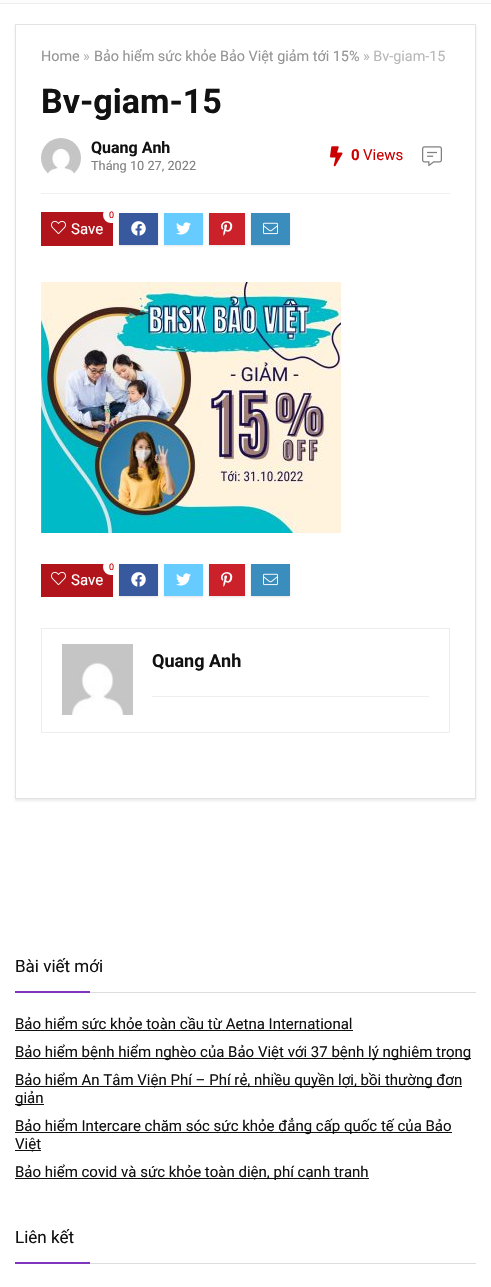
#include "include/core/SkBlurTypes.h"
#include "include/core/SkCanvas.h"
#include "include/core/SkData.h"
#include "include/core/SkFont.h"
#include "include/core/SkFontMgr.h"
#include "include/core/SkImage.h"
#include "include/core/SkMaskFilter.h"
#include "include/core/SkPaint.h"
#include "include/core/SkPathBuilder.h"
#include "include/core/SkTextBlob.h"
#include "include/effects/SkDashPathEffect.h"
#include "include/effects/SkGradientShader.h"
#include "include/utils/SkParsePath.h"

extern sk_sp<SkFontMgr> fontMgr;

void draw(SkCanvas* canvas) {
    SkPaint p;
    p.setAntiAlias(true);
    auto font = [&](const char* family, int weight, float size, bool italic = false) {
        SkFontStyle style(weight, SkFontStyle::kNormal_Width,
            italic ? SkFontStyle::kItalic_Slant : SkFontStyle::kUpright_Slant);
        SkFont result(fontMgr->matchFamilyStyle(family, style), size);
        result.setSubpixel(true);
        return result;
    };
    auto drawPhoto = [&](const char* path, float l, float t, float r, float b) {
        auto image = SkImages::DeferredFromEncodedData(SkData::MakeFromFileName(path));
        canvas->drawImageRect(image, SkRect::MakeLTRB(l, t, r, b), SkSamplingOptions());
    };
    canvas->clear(0xFFFFFFFF);
    p.setColor(0xFFFCFCFC);
    canvas->drawRect(SkRect::MakeLTRB(0, 0, 491, 3), p);
    p.setColor(0xFFEEEEEE);
    canvas->drawRect(SkRect::MakeLTRB(0, 3, 491, 4), p);
    canvas->save();
    canvas->clipPath(SkPathBuilder(SkPathFillType::kEvenOdd).moveTo(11, 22).lineTo(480, 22).lineTo(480, 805).lineTo(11, 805).close().moveTo(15, 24).lineTo(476, 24).lineTo(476, 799).lineTo(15, 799).close().detach(), true);
    p.setColor(0xFFECECEC);
    p.setMaskFilter(SkMaskFilter::MakeBlur(kNormal_SkBlurStyle, 1));
    canvas->drawRect(SkRect::MakeLTRB(15, 26, 476, 801), p);
    p.setMaskFilter(nullptr);
    canvas->restore();
    p.setStyle(SkPaint::kStroke_Style);
    p.setStrokeWidth(1);
    p.setColor(0xFFE3E3E3);
    canvas->drawRect(SkRect::MakeLTRB(15.5f, 24.5f, 475.5f, 798.5f), p);
    auto font1 = font("Roboto", 400, 14.4f);
    p.setStyle(SkPaint::kFill_Style);
    p.setColor(0xFF949494);
    canvas->drawString("Home", 41, 61, font1, p);
    p.setColor(0xFFB8B8B8);
    canvas->drawString("»", 83, 61, font1, p);
    p.setColor(0xFF949494);
    canvas->drawString("Bảo hiểm sức khỏe Bảo Việt giảm tới 15%", 94, 61, font1, p);
    p.setColor(0xFFB8B8B8);
    canvas->drawString("» Bv-giam-15", 363, 61, font1, p);
    auto font2 = font("Roboto", 700, 34);
    p.setColor(0xFF111111);
    canvas->drawString("Bv-giam-15", 41, 113, font2, p);
    p.setColor(0xFFF0F0F0);
    canvas->drawRect(SkRect::MakeLTRB(41, 193, 450, 194), p);
    drawPhoto("media/1.png", 41, 138, 81, 174);
    auto font3 = font("Roboto", 700, 16);
    p.setColor(0xFF111111);
    canvas->drawString("Quang Anh", 91, 153, font3, p);
    auto font4 = font("Roboto", 400, 12.75f);
    p.setColor(0xFF808080);
    canvas->drawString("Tháng 10 27, 2022", 91, 170, font4, p);
    drawPhoto("media/2.png", 330, 146, 343, 167);
    auto font5 = font("Roboto", 700, 15);
    p.setColor(0xFFCC0000);
    canvas->drawString("0", 351, 160, font5, p);
    auto font6 = font("Roboto", 400, 15);
    canvas->drawString("Views", 363, 160, font6, p);
    drawPhoto("media/3.png", 422, 146, 442, 167);
    p.setColor(0xFFB1141A);
    canvas->drawRect(SkRect::MakeLTRB(41, 212, 113, 246), p);
    canvas->save();
    canvas->clipRect(SkRect::MakeLTRB(41, 209, 450, 252));
    p.setColor(0xFFFFFFFF);
    canvas->drawRoundRect(SkRect::MakeLTRB(103, 207, 120, 223), 8, 8, p);
    canvas->restore();
    auto font7 = font("Roboto", 400, 9);
    p.setColor(0xFFCC0000);
    canvas->drawString("0", 109, 218, font7, p);
    drawPhoto("media/4.png", 51, 220, 66, 234);
    p.setColor(0xFFFFFFFF);
    canvas->drawString("Save", 71, 234, font6, p);
    p.setColor(0xFFE4E4E4);
    p.setMaskFilter(SkMaskFilter::MakeBlur(kNormal_SkBlurStyle, 1));
    canvas->drawRect(SkRect::MakeLTRB(119, 214, 158, 246), p);
    p.setMaskFilter(nullptr);
    p.setColor(0xFF39599F);
    canvas->drawRect(SkRect::MakeLTRB(119, 213, 158, 245), p);
    drawPhoto("media/5.png", 131, 221, 146, 236);
    p.setColor(0xFFE4E4E4);
    p.setMaskFilter(SkMaskFilter::MakeBlur(kNormal_SkBlurStyle, 1));
    canvas->drawRect(SkRect::MakeLTRB(164, 214, 203, 246), p);
    p.setMaskFilter(nullptr);
    p.setColor(0xFF66CCFF);
    canvas->drawRect(SkRect::MakeLTRB(164, 213, 203, 245), p);
    drawPhoto("media/6.png", 176, 222, 191, 235);
    p.setColor(0xFFE4E4E4);
    p.setMaskFilter(SkMaskFilter::MakeBlur(kNormal_SkBlurStyle, 1));
    canvas->drawRect(SkRect::MakeLTRB(209, 214, 245, 246), p);
    p.setMaskFilter(nullptr);
    p.setColor(0xFFCA212A);
    canvas->drawRect(SkRect::MakeLTRB(209, 213, 245, 245), p);
    drawPhoto("media/7.png", 221, 221, 233, 236);
    p.setColor(0xFFE4E4E4);
    p.setMaskFilter(SkMaskFilter::MakeBlur(kNormal_SkBlurStyle, 1));
    canvas->drawRect(SkRect::MakeLTRB(251, 214, 290, 246), p);
    p.setMaskFilter(nullptr);
    p.setColor(0xFF3B8DBD);
    canvas->drawRect(SkRect::MakeLTRB(251, 213, 290, 245), p);
    drawPhoto("media/8.png", 263, 222, 278, 235);
    drawPhoto("media/9.png", 41, 282, 341, 533);
    p.setColor(0xFFB1141A);
    canvas->drawRect(SkRect::MakeLTRB(41, 564, 113, 597), p);
    p.setColor(0xFFFFFFFF);
    canvas->drawRoundRect(SkRect::MakeLTRB(103, 559, 120, 575), 8, 8, p);
    p.setColor(0xFFCC0000);
    canvas->drawString("0", 109, 570, font7, p);
    drawPhoto("media/4.png", 51, 571, 66, 585);
    p.setColor(0xFFFFFFFF);
    canvas->drawString("Save", 71, 585, font6, p);
    p.setColor(0xFFE4E4E4);
    p.setMaskFilter(SkMaskFilter::MakeBlur(kNormal_SkBlurStyle, 1));
    canvas->drawRect(SkRect::MakeLTRB(119, 565, 158, 597), p);
    p.setMaskFilter(nullptr);
    p.setColor(0xFF39599F);
    canvas->drawRect(SkRect::MakeLTRB(119, 564, 158, 596), p);
    drawPhoto("media/5.png", 131, 572, 146, 587);
    p.setColor(0xFFE4E4E4);
    p.setMaskFilter(SkMaskFilter::MakeBlur(kNormal_SkBlurStyle, 1));
    canvas->drawRect(SkRect::MakeLTRB(164, 565, 203, 597), p);
    p.setMaskFilter(nullptr);
    p.setColor(0xFF66CCFF);
    canvas->drawRect(SkRect::MakeLTRB(164, 564, 203, 596), p);
    drawPhoto("media/6.png", 176, 573, 191, 586);
    p.setColor(0xFFE4E4E4);
    p.setMaskFilter(SkMaskFilter::MakeBlur(kNormal_SkBlurStyle, 1));
    canvas->drawRect(SkRect::MakeLTRB(209, 565, 245, 597), p);
    p.setMaskFilter(nullptr);
    p.setColor(0xFFCA212A);
    canvas->drawRect(SkRect::MakeLTRB(209, 564, 245, 596), p);
    drawPhoto("media/7.png", 221, 572, 233, 587);
    p.setColor(0xFFE4E4E4);
    p.setMaskFilter(SkMaskFilter::MakeBlur(kNormal_SkBlurStyle, 1));
    canvas->drawRect(SkRect::MakeLTRB(251, 565, 290, 597), p);
    p.setMaskFilter(nullptr);
    p.setColor(0xFF3B8DBD);
    canvas->drawRect(SkRect::MakeLTRB(251, 564, 290, 596), p);
    drawPhoto("media/8.png", 263, 573, 278, 586);
    p.setStyle(SkPaint::kStroke_Style);
    p.setColor(0xFFEDEDED);
    canvas->drawRect(SkRect::MakeLTRB(41.5f, 628.5f, 449.5f, 732.5f), p);
    drawPhoto("media/10.png", 62, 644, 133, 715);
    auto font8 = font("Roboto", 700, 18);
    p.setStyle(SkPaint::kFill_Style);
    p.setColor(0xFF111111);
    canvas->drawString("Quang Anh", 152, 667, font8, p);
    p.setColor(0xFFEEEEEE);
    canvas->drawRect(SkRect::MakeLTRB(152, 696, 429, 697), p);
    p.setColor(0xFFDDDDDD);
    canvas->drawRect(SkRect::MakeLTRB(90, 992, 476, 993), p);
    auto font9 = font("Roboto", 400, 17);
    p.setColor(0xFF111111);
    canvas->drawString("Bài viết mới", 15, 972, font9, p);
    p.setColor(0xFF8035BE);
    canvas->drawRect(SkRect::MakeLTRB(15, 991, 90, 993), p);
    p.setColor(0xFF111111);
    canvas->drawString("Bảo hiểm sức khỏe toàn cầu từ Aetna International", 15, 1029, font6, p);
    canvas->drawRect(SkRect::MakeLTRB(15, 1030, 353, 1031), p);
    canvas->drawRect(SkRect::MakeLTRB(15, 1058, 471, 1059), p);
    canvas->drawString("Bảo hiểm bệnh hiểm nghèo của Bảo Việt với 37 bệnh lý nghiêm trọng", 15, 1057, font6, p);
    canvas->drawRect(SkRect::MakeLTRB(15, 1086, 462, 1087), p);
    canvas->drawString("Bảo hiểm An Tâm Viện Phí – Phí rẻ, nhiều quyền lợi, bồi thường đơn", 15, 1085, font6, p);
    canvas->drawRect(SkRect::MakeLTRB(15, 1104, 44, 1105), p);
    canvas->drawString("giản", 15, 1103, font6, p);
    canvas->drawRect(SkRect::MakeLTRB(15, 1132, 452, 1133), p);
    canvas->drawString("Bảo hiểm Intercare chăm sóc sức khỏe đẳng cấp quốc tế của Bảo", 15, 1131, font6, p);
    canvas->drawRect(SkRect::MakeLTRB(15, 1150, 41, 1151), p);
    canvas->drawString("Việt", 15, 1149, font6, p);
    canvas->drawRect(SkRect::MakeLTRB(15, 1178, 369, 1179), p);
    canvas->drawString("Bảo hiểm covid và sức khỏe toàn diện, phí cạnh tranh", 15, 1177, font6, p);
    p.setColor(0xFFDDDDDD);
    canvas->drawRect(SkRect::MakeLTRB(90, 1263, 476, 1264), p);
    p.setColor(0xFF111111);
    canvas->drawString("Liên kết", 15, 1243, font9, p);
    p.setColor(0xFF8035BE);
    canvas->drawRect(SkRect::MakeLTRB(15, 1262, 90, 1264), p);
}
